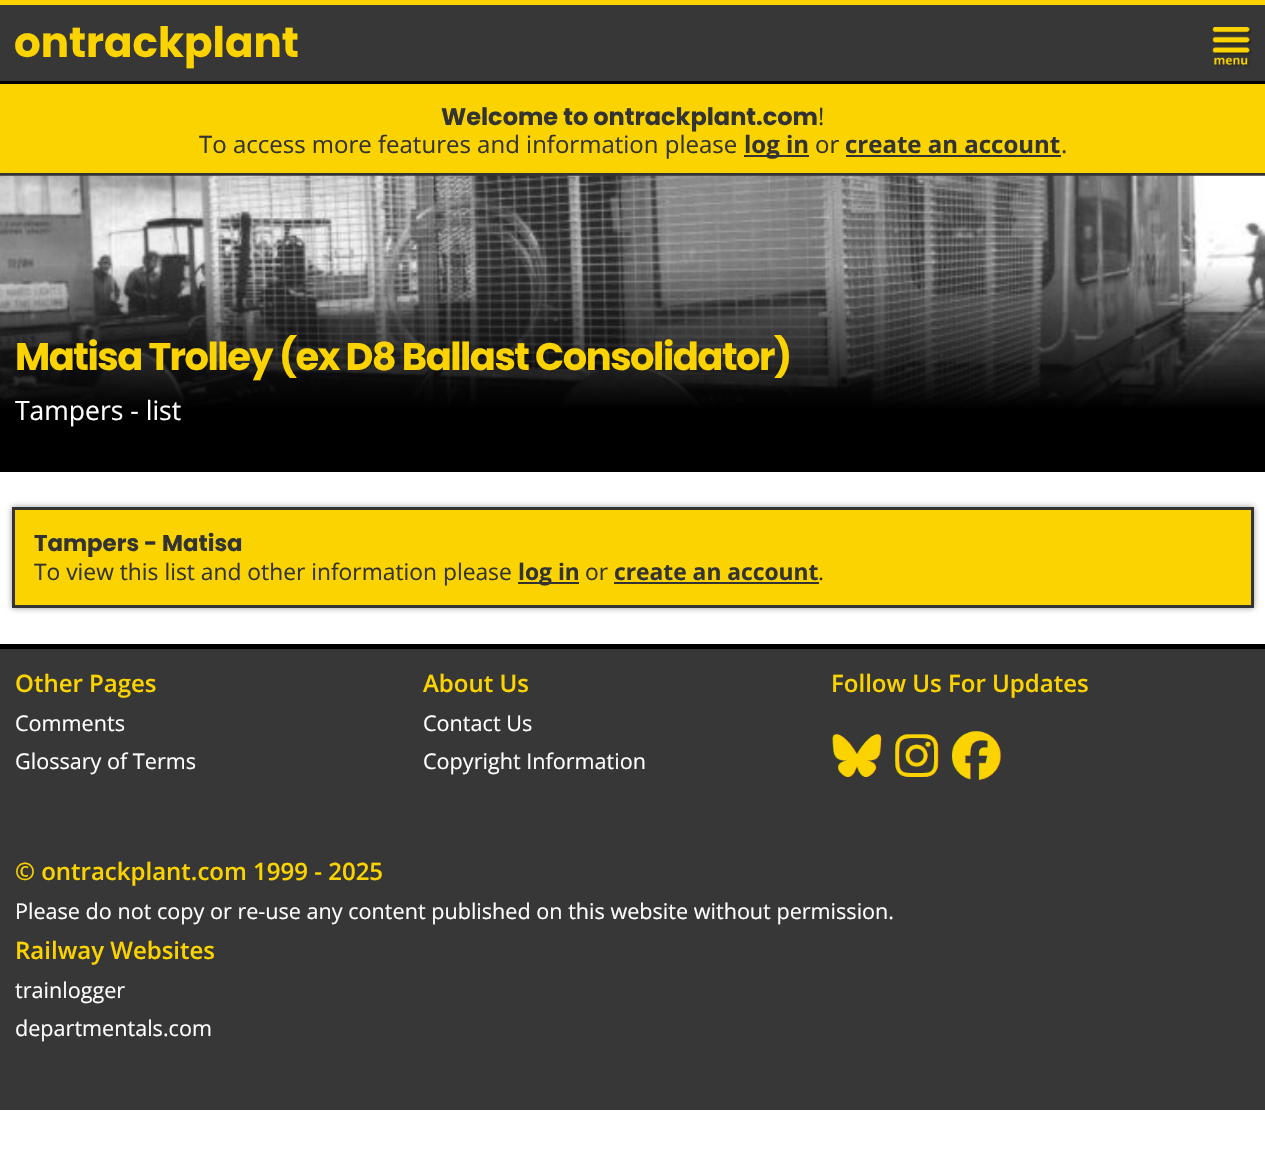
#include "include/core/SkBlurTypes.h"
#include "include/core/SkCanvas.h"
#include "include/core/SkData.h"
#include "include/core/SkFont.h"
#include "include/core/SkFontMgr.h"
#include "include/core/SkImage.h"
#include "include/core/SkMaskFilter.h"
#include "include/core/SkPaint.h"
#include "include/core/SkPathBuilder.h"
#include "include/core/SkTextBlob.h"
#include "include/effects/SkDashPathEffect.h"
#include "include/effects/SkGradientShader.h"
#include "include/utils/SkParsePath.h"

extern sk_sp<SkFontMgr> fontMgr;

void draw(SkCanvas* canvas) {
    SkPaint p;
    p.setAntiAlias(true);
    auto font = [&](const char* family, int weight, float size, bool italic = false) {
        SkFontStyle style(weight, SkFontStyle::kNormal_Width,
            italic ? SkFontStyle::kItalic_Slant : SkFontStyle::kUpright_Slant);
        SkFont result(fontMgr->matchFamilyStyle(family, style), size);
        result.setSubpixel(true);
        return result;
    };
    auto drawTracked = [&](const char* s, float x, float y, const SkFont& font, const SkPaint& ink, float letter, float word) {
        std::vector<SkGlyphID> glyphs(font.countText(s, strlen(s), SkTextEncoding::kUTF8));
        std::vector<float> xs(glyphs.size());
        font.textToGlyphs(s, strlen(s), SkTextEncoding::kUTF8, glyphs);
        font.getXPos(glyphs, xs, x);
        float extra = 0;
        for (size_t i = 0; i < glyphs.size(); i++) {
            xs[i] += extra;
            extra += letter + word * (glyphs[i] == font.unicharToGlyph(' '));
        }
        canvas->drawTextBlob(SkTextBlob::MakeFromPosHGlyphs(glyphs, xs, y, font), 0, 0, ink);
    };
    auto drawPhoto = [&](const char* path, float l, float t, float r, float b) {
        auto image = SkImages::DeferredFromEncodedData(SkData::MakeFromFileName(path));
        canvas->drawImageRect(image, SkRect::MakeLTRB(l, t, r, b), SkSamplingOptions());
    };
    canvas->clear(0xFFFFFFFF);
    {
        const struct { float l, t, r, b; SkColor color; } items[] = {
            {0, 5, 1265, 81, 0xFF373737},
            {0, 0, 1265, 5, 0xFFFAD300},
            {0, 81, 1265, 84, 0xFF000000},
        };
        for (auto [l, t, r, b, color] : items) {
            p.setColor(color);
            canvas->drawRect(SkRect::MakeLTRB(l, t, r, b), p);
        }
    }
    auto font1 = font("Poppins", 700, 42);
    p.setColor(0xFFFAD300);
    canvas->drawString("ontrackplant", 14, 57, font1, p);
    drawPhoto("media/1.png", 1212, 27, 1252, 68);
    canvas->drawRect(SkRect::MakeLTRB(0, 84, 1265, 173), p);
    p.setColor(0xFF333333);
    canvas->drawRect(SkRect::MakeLTRB(0, 173, 1265, 176), p);
    auto font2 = font("Poppins", 700, 24);
    canvas->drawString("Welcome to ontrackplant.com", 441, 125, font2, p);
    auto font3 = font("Open Sans", 400, 24);
    canvas->drawString("!", 818, 125, font3, p);
    canvas->drawString("To access more features and information please", 199, 153, font3, p);
    canvas->drawRect(SkRect::MakeLTRB(744, 155, 809, 157), p);
    auto font4 = font("Open Sans", 700, 24);
    canvas->drawString("log in", 744, 153, font4, p);
    canvas->drawString("or", 815, 153, font3, p);
    canvas->drawString("create an account", 845, 153, font4, p);
    canvas->drawRect(SkRect::MakeLTRB(846, 155, 1061, 157), p);
    canvas->drawString(".", 1061, 153, font3, p);
    p.setColor(0xFF000000);
    canvas->drawRect(SkRect::MakeLTRB(0, 467, 1265, 472), p);
    drawPhoto("media/2.png", 0, 175, 1265, 408);
    {
        const SkColor colors[] = {0x00000000, 0xFF000000};
        const float stops[] = {0.3f, 0.8f};
        const SkPoint ends[] = {{633, 175}, {633, 467}};
        p.setShader(SkGradientShader::MakeLinear(ends, colors, stops, 2, SkTileMode::kClamp));
        p.setAlpha(255);
    }
    canvas->drawRect(SkRect::MakeLTRB(0, 266, 1265, 467), p);
    auto font5 = font("Poppins", 700, 38.4f);
    p.setShader(nullptr);
    p.setColor(0xFFFAD300);
    drawTracked("Matisa Trolley (ex D8 Ballast Consolidator)", 15, 370, font5, p, -1.5f, 0);
    auto font6 = font("Open Sans", 400, 26.5f);
    p.setColor(0xFFFFFFFF);
    canvas->drawString("Tampers - list", 15, 420, font6, p);
    p.setColor(0xFF999999);
    p.setMaskFilter(SkMaskFilter::MakeBlur(kNormal_SkBlurStyle, 3));
    canvas->drawRect(SkRect::MakeLTRB(12, 507, 1254, 608), p);
    p.setMaskFilter(nullptr);
    p.setColor(0xFFFAD300);
    canvas->drawRect(SkRect::MakeLTRB(13.5f, 508.5f, 1252.5f, 606.5f), p);
    p.setStyle(SkPaint::kStroke_Style);
    p.setStrokeWidth(3);
    p.setColor(0xFF333333);
    canvas->drawRect(SkRect::MakeLTRB(13.5f, 508.5f, 1252.5f, 606.5f), p);
    auto font7 = font("Poppins", 700, 22.8f);
    p.setStyle(SkPaint::kFill_Style);
    canvas->drawString("Tampers - Matisa", 34, 551, font7, p);
    auto font8 = font("Open Sans", 400, 22.8f);
    canvas->drawString("To view this list and other information please", 34, 580, font8, p);
    canvas->drawRect(SkRect::MakeLTRB(518, 582, 579, 584), p);
    auto font9 = font("Open Sans", 700, 22.8f);
    canvas->drawString("log in", 518, 580, font9, p);
    canvas->drawString("or", 585, 580, font8, p);
    canvas->drawString("create an account", 614, 580, font9, p);
    canvas->drawRect(SkRect::MakeLTRB(614, 582, 819, 584), p);
    canvas->drawString(".", 818, 580, font8, p);
    p.setColor(0xFF373737);
    canvas->drawRect(SkRect::MakeLTRB(0, 649, 1265, 1110), p);
    p.setColor(0xFF000000);
    canvas->drawRect(SkRect::MakeLTRB(0, 644, 1265, 649), p);
    auto font10 = font("Open Sans", 600, 24);
    p.setColor(0xFFFAD300);
    canvas->drawString("Other Pages", 15, 692, font10, p);
    auto font11 = font("Open Sans", 400, 21.6f);
    p.setColor(0xFFFFFFFF);
    canvas->drawString("Comments", 15, 731, font11, p);
    canvas->drawString("Glossary of Terms", 15, 769, font11, p);
    p.setColor(0xFFFAD300);
    canvas->drawString("About Us", 423, 692, font10, p);
    p.setColor(0xFFFFFFFF);
    canvas->drawString("Contact Us", 423, 731, font11, p);
    canvas->drawString("Copyright Information", 423, 769, font11, p);
    p.setColor(0xFFFAD300);
    canvas->drawString("Follow Us For Updates", 831, 692, font10, p);
    drawPhoto("media/3.png", 832, 734, 882, 777);
    drawPhoto("media/4.png", 894, 734, 939, 777);
    drawPhoto("media/5.png", 951, 731, 1002, 780);
    canvas->drawString("© ontrackplant.com 1999 - 2025", 15, 880, font10, p);
    p.setColor(0xFFFFFFFF);
    canvas->drawString("Please do not copy or re-use any content published on this website without permission.", 15, 919, font11, p);
    p.setColor(0xFFFAD300);
    canvas->drawString("Railway Websites", 15, 959, font10, p);
    p.setColor(0xFFFFFFFF);
    canvas->drawString("trainlogger", 15, 998, font11, p);
    canvas->drawString("departmentals.com", 15, 1036, font11, p);
}
